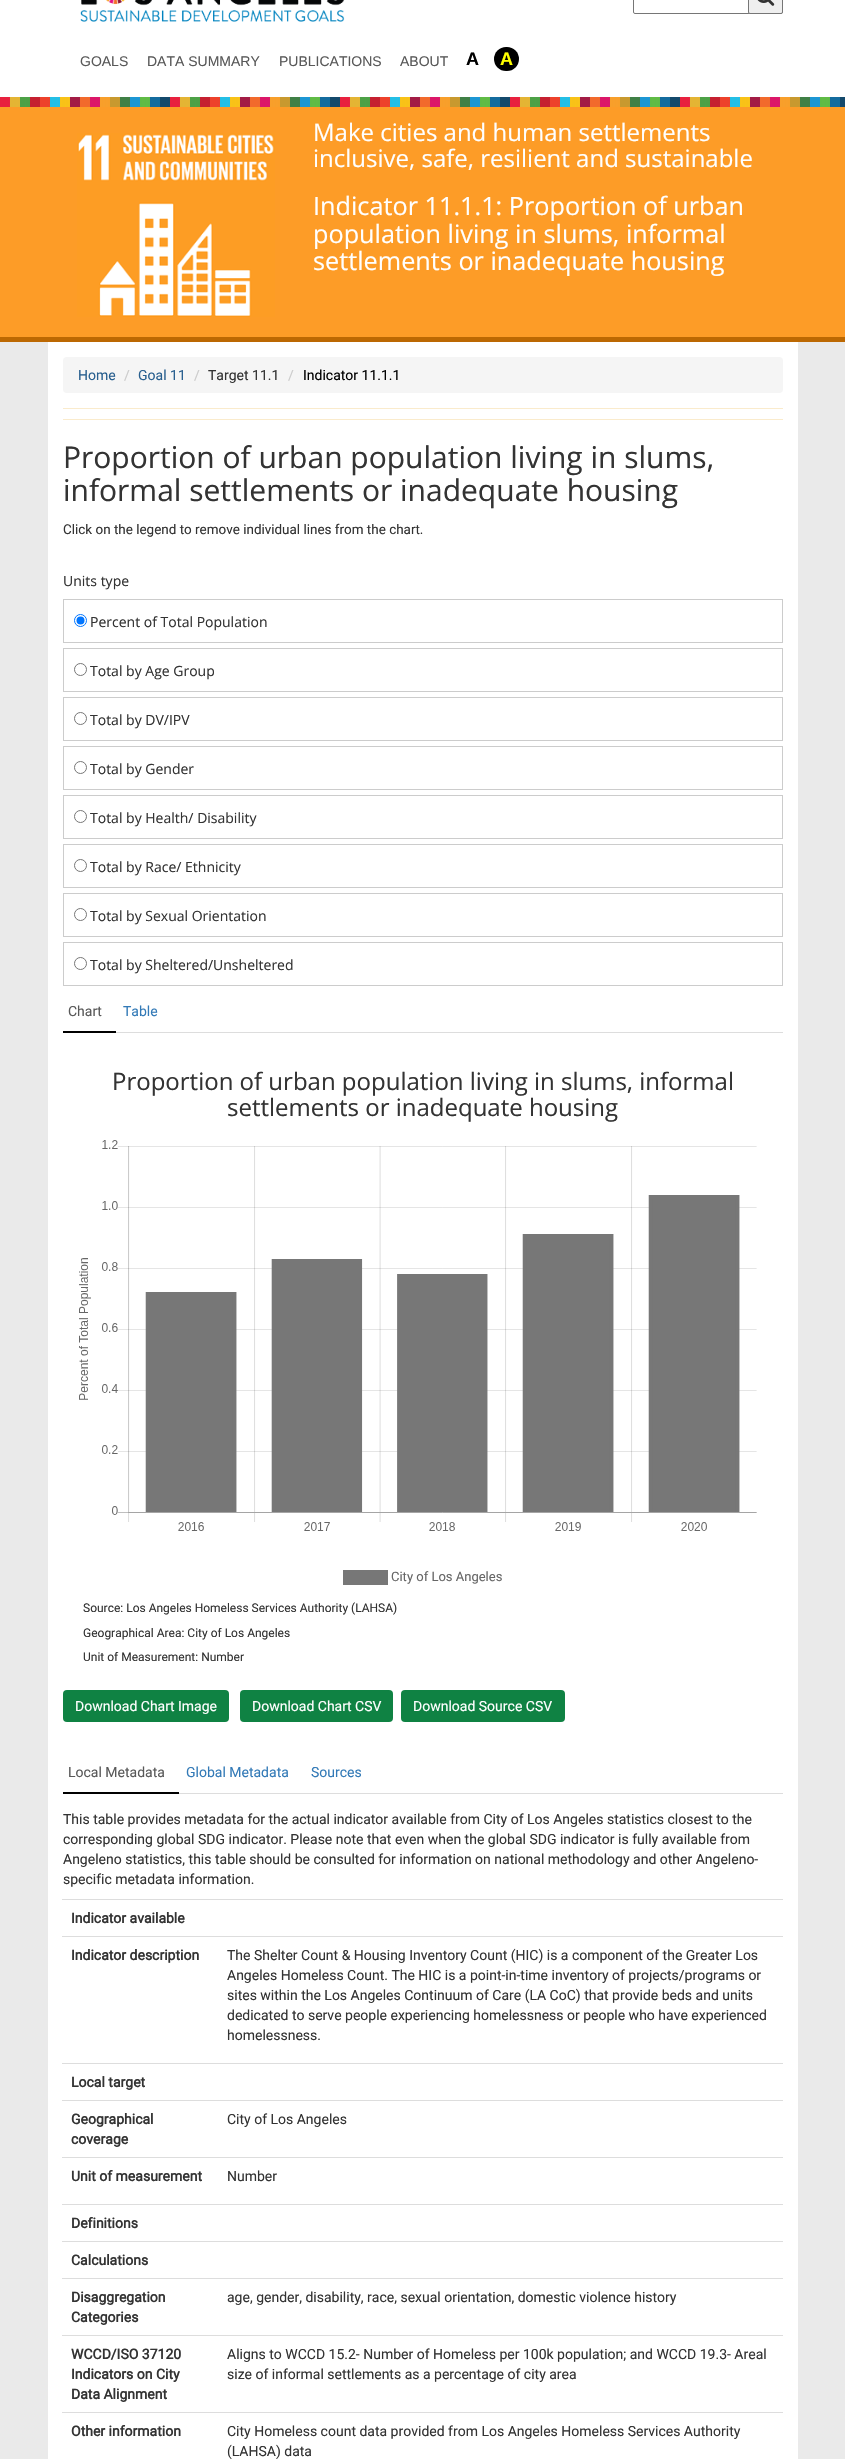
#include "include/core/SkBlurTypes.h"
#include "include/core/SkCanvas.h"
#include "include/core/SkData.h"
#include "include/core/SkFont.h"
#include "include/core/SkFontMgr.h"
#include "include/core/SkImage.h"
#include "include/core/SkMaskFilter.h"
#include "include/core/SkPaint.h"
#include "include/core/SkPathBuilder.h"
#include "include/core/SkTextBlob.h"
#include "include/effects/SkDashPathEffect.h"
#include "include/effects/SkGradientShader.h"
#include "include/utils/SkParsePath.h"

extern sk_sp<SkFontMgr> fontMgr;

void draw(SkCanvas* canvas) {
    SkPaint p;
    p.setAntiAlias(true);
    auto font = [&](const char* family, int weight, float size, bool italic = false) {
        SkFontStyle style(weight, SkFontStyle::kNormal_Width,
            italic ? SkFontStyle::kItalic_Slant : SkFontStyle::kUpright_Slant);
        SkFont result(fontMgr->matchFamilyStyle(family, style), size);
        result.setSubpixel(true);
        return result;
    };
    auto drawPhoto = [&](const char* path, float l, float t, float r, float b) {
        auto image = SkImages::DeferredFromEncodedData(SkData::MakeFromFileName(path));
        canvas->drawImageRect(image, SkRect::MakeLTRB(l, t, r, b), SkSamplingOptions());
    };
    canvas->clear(0xFFEAEAEA);
    p.setColor(0xFFFFFFFF);
    canvas->drawRect(SkRect::MakeLTRB(0, 0, 845, 97), p);
    drawPhoto("media/1.png", 0, 97, 845, 107);
    drawPhoto("media/2.png", 80, 0, 345, 22);
    p.setStyle(SkPaint::kStroke_Style);
    p.setStrokeWidth(1);
    p.setColor(0xFF767676);
    canvas->drawRoundRect(SkRect::MakeLTRB(633.5f, -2.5f, 782.5f, 13.5f), 1.5f, 1.5f, p);
    p.setStyle(SkPaint::kFill_Style);
    p.setColor(0xFFEFEFEF);
    canvas->drawRoundRect(SkRect::MakeLTRB(748.5f, -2.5f, 782.5f, 13.5f), 1.5f, 1.5f, p);
    p.setStyle(SkPaint::kStroke_Style);
    p.setColor(0xFF767676);
    canvas->drawRoundRect(SkRect::MakeLTRB(748.5f, -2.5f, 782.5f, 13.5f), 1.5f, 1.5f, p);
    drawPhoto("media/3.png", 757, 0, 775, 6);
    auto font1 = font("Liberation Sans", 400, 14);
    p.setStyle(SkPaint::kFill_Style);
    p.setColor(0xFF595959);
    {
        const struct { const char* s; float x, y; } items[] = {
            {"GOALS", 80, 66},
            {"DATA SUMMARY", 147, 66},
            {"PUBLICATIONS", 279, 66},
            {"ABOUT", 400, 66},
        };
        for (auto [s, x, y] : items) {
            canvas->drawString(s, x, y, font1, p);
        }
    }
    auto font2 = font("Liberation Sans", 700, 18);
    p.setColor(0xFF000000);
    canvas->drawString("A", 466, 65, font2, p);
    canvas->drawRoundRect(SkRect::MakeLTRB(494, 47, 519, 71), 12, 12, p);
    p.setColor(0xFFFFFF00);
    canvas->drawString("A", 500, 65, font2, p);
    p.setColor(0xFFFD9C27);
    canvas->drawRect(SkRect::MakeLTRB(0, 107, 845, 337), p);
    p.setColor(0xFFBC6802);
    canvas->drawRect(SkRect::MakeLTRB(0, 337, 845, 342), p);
    drawPhoto("media/4.png", 77, 133, 275, 317);
    auto font3 = font("Open Sans", 400, 24);
    p.setColor(0xFFFFFFFF);
    canvas->drawString("Make cities and human settlements", 313, 141, font3, p);
    canvas->drawString("inclusive, safe, resilient and sustainable", 313, 167, font3, p);
    auto font4 = font("Open Sans", 400, 25.25f);
    {
        const struct { const char* s; float x, y; } items[] = {
            {"Indicator 11.1.1: Proportion of urban", 313, 215},
            {"population living in slums, informal", 313, 243},
            {"settlements or inadequate housing", 313, 270},
        };
        for (auto [s, x, y] : items) {
            canvas->drawString(s, x, y, font4, p);
        }
    }
    canvas->drawRect(SkRect::MakeLTRB(48, 342, 798, 2459), p);
    p.setColor(0xFFF5F5F5);
    canvas->drawRoundRect(SkRect::MakeLTRB(63, 357, 783, 393), 4, 4, p);
    auto font5 = font("Roboto", 400, 14);
    p.setColor(0xFF285F8F);
    canvas->drawString("Home", 78, 380, font5, p);
    p.setColor(0xFFCCCCCC);
    canvas->drawString("/", 124, 380, font5, p);
    p.setColor(0xFF285F8F);
    canvas->drawString("Goal 11", 138, 380, font5, p);
    p.setColor(0xFFCCCCCC);
    canvas->drawString("/", 194, 380, font5, p);
    p.setColor(0xFF333333);
    canvas->drawString("Target 11.1", 208, 380, font5, p);
    p.setColor(0xFFCCCCCC);
    canvas->drawString("/", 288, 380, font5, p);
    p.setColor(0xFF000000);
    canvas->drawString("Indicator 11.1.1", 303, 380, font5, p);
    p.setColor(0xFFFAEBCC);
    canvas->drawRect(SkRect::MakeLTRB(63, 408, 783, 409), p);
    canvas->drawRect(SkRect::MakeLTRB(63, 419, 783, 420), p);
    auto font6 = font("Open Sans", 400, 30);
    p.setColor(0xFF333333);
    canvas->drawString("Proportion of urban population living in slums,", 63, 468, font6, p);
    canvas->drawString("informal settlements or inadequate housing", 63, 501, font6, p);
    auto font7 = font("Roboto", 400, 13.45f);
    canvas->drawString("Click on the legend to remove individual lines from the chart.", 63, 534, font7, p);
    auto font8 = font("Open Sans", 400, 14);
    canvas->drawString("Units type", 63, 586, font8, p);
    p.setStyle(SkPaint::kStroke_Style);
    p.setColor(0xFFCCCCCC);
    canvas->drawRect(SkRect::MakeLTRB(63.5f, 599.5f, 782.5f, 642.5f), p);
    p.setColor(0xFF0075FF);
    canvas->drawCircle(80.5f, 620.5f, 6, p);
    p.setStyle(SkPaint::kFill_Style);
    canvas->drawCircle(80.5f, 620.5f, 4, p);
    p.setColor(0xFF333333);
    canvas->drawString("Percent of Total Population", 90, 627, font8, p);
    p.setStyle(SkPaint::kStroke_Style);
    p.setColor(0xFFCCCCCC);
    canvas->drawRect(SkRect::MakeLTRB(63.5f, 648.5f, 782.5f, 691.5f), p);
    p.setColor(0xFF767676);
    canvas->drawCircle(80.5f, 669.5f, 6, p);
    p.setStyle(SkPaint::kFill_Style);
    p.setColor(0xFF333333);
    canvas->drawString("Total by Age Group", 90, 676, font8, p);
    p.setStyle(SkPaint::kStroke_Style);
    p.setColor(0xFFCCCCCC);
    canvas->drawRect(SkRect::MakeLTRB(63.5f, 697.5f, 782.5f, 740.5f), p);
    p.setColor(0xFF767676);
    canvas->drawCircle(80.5f, 718.5f, 6, p);
    p.setStyle(SkPaint::kFill_Style);
    p.setColor(0xFF333333);
    canvas->drawString("Total by DV/IPV", 90, 725, font8, p);
    p.setStyle(SkPaint::kStroke_Style);
    p.setColor(0xFFCCCCCC);
    canvas->drawRect(SkRect::MakeLTRB(63.5f, 746.5f, 782.5f, 789.5f), p);
    p.setColor(0xFF767676);
    canvas->drawCircle(80.5f, 767.5f, 6, p);
    p.setStyle(SkPaint::kFill_Style);
    p.setColor(0xFF333333);
    canvas->drawString("Total by Gender", 90, 774, font8, p);
    p.setStyle(SkPaint::kStroke_Style);
    p.setColor(0xFFCCCCCC);
    canvas->drawRect(SkRect::MakeLTRB(63.5f, 795.5f, 782.5f, 838.5f), p);
    p.setColor(0xFF767676);
    canvas->drawCircle(80.5f, 816.5f, 6, p);
    p.setStyle(SkPaint::kFill_Style);
    p.setColor(0xFF333333);
    canvas->drawString("Total by Health/ Disability", 90, 823, font8, p);
    p.setStyle(SkPaint::kStroke_Style);
    p.setColor(0xFFCCCCCC);
    canvas->drawRect(SkRect::MakeLTRB(63.5f, 844.5f, 782.5f, 887.5f), p);
    p.setColor(0xFF767676);
    canvas->drawCircle(80.5f, 865.5f, 6, p);
    p.setStyle(SkPaint::kFill_Style);
    p.setColor(0xFF333333);
    canvas->drawString("Total by Race/ Ethnicity", 90, 872, font8, p);
    p.setStyle(SkPaint::kStroke_Style);
    p.setColor(0xFFCCCCCC);
    canvas->drawRect(SkRect::MakeLTRB(63.5f, 893.5f, 782.5f, 936.5f), p);
    p.setColor(0xFF767676);
    canvas->drawCircle(80.5f, 914.5f, 6, p);
    p.setStyle(SkPaint::kFill_Style);
    p.setColor(0xFF333333);
    canvas->drawString("Total by Sexual Orientation", 90, 921, font8, p);
    p.setStyle(SkPaint::kStroke_Style);
    p.setColor(0xFFCCCCCC);
    canvas->drawRect(SkRect::MakeLTRB(63.5f, 942.5f, 782.5f, 985.5f), p);
    p.setColor(0xFF767676);
    canvas->drawCircle(80.5f, 963.5f, 6, p);
    p.setStyle(SkPaint::kFill_Style);
    p.setColor(0xFF333333);
    canvas->drawString("Total by Sheltered/Unsheltered", 90, 970, font8, p);
    p.setColor(0xFFDDDDDD);
    canvas->drawRect(SkRect::MakeLTRB(116, 1032, 783, 1033), p);
    p.setColor(0xFF000000);
    canvas->drawRect(SkRect::MakeLTRB(63, 1031, 116, 1033), p);
    p.setColor(0xFF595959);
    canvas->drawString("Chart", 68, 1016, font5, p);
    p.setColor(0xFF337AB7);
    canvas->drawString("Table", 123, 1016, font5, p);
    p.setColor(0xFF333333);
    canvas->drawString("Proportion of urban population living in slums, informal", 112, 1090, font3, p);
    canvas->drawString("settlements or inadequate housing", 227, 1116, font3, p);
    drawPhoto("media/5.png", 79, 1140, 757, 1531);
    p.setColor(0xFF777777);
    canvas->drawRect(SkRect::MakeLTRB(343, 1570, 388, 1585), p);
    auto font9 = font("Roboto", 400, 13);
    p.setColor(0xFF666666);
    canvas->drawString("City of Los Angeles", 391, 1581, font9, p);
    auto font10 = font("Roboto", 400, 12);
    p.setColor(0xFF333333);
    {
        const struct { const char* s; float x, y; } items[] = {
            {"Source: Los Angeles Homeless Services Authority (LAHSA)", 83, 1612},
            {"Geographical Area: City of Los Angeles", 83, 1637},
            {"Unit of Measurement: Number", 83, 1661},
        };
        for (auto [s, x, y] : items) {
            canvas->drawString(s, x, y, font10, p);
        }
    }
    p.setColor(0xFF0F8243);
    canvas->drawRoundRect(SkRect::MakeLTRB(63, 1690, 229, 1722), 4, 4, p);
    p.setColor(0xFFFFFFFF);
    canvas->drawString("Download Chart Image", 75, 1711, font5, p);
    p.setColor(0xFF0F8243);
    canvas->drawRoundRect(SkRect::MakeLTRB(240, 1690, 393, 1722), 4, 4, p);
    p.setColor(0xFFFFFFFF);
    canvas->drawString("Download Chart CSV", 252, 1711, font5, p);
    p.setColor(0xFF0F8243);
    canvas->drawRoundRect(SkRect::MakeLTRB(401, 1690, 565, 1722), 4, 4, p);
    p.setColor(0xFFFFFFFF);
    canvas->drawString("Download Source CSV", 413, 1711, font5, p);
    p.setColor(0xFFDDDDDD);
    canvas->drawRect(SkRect::MakeLTRB(179, 1793, 783, 1794), p);
    p.setColor(0xFF000000);
    canvas->drawRect(SkRect::MakeLTRB(63, 1792, 179, 1794), p);
    p.setColor(0xFF595959);
    canvas->drawString("Local Metadata", 68, 1777, font5, p);
    p.setColor(0xFF337AB7);
    canvas->drawString("Global Metadata", 186, 1777, font5, p);
    canvas->drawString("Sources", 311, 1777, font5, p);
    p.setColor(0xFF333333);
    {
        const struct { const char* s; float x, y; } items[] = {
            {"This table provides metadata for the actual indicator available from City of Los Angeles statistics closest to the", 63, 1824},
            {"corresponding global SDG indicator. Please note that even when the global SDG indicator is fully available from", 63, 1844},
            {"Angeleno statistics, this table should be consulted for information on national methodology and other Angeleno-", 63, 1864},
            {"specific metadata information.", 63, 1884},
        };
        for (auto [s, x, y] : items) {
            canvas->drawString(s, x, y, font5, p);
        }
    }
    p.setColor(0xFFDDDDDD);
    canvas->drawRect(SkRect::MakeLTRB(62, 1899, 783, 1900), p);
    auto font11 = font("Roboto", 700, 14);
    p.setColor(0xFF333333);
    canvas->drawString("Indicator available", 71, 1923, font11, p);
    canvas->drawString("Indicator description", 71, 1960, font11, p);
    p.setColor(0xFFDDDDDD);
    canvas->drawRect(SkRect::MakeLTRB(62, 1936, 783, 1937), p);
    p.setColor(0xFF333333);
    {
        const struct { const char* s; float x, y; } items[] = {
            {"The Shelter Count & Housing Inventory Count (HIC) is a component of the Greater Los", 227, 1960},
            {"Angeles Homeless Count. The HIC is a point-in-time inventory of projects/programs or", 227, 1980},
            {"sites within the Los Angeles Continuum of Care (LA CoC) that provide beds and units", 227, 2000},
            {"dedicated to serve people experiencing homelessness or people who have experienced", 227, 2020},
            {"homelessness.", 227, 2040},
        };
        for (auto [s, x, y] : items) {
            canvas->drawString(s, x, y, font5, p);
        }
    }
    p.setColor(0xFFDDDDDD);
    canvas->drawRect(SkRect::MakeLTRB(62, 2063, 783, 2064), p);
    p.setColor(0xFF333333);
    {
        const struct { const char* s; float x, y; } items[] = {
            {"Local target", 71, 2087},
            {"Geographical", 71, 2124},
            {"coverage", 71, 2144},
        };
        for (auto [s, x, y] : items) {
            canvas->drawString(s, x, y, font11, p);
        }
    }
    p.setColor(0xFFDDDDDD);
    canvas->drawRect(SkRect::MakeLTRB(62, 2100, 783, 2101), p);
    p.setColor(0xFF333333);
    canvas->drawString("City of Los Angeles", 227, 2124, font5, p);
    canvas->drawString("Unit of measurement", 71, 2181, font11, p);
    p.setColor(0xFFDDDDDD);
    canvas->drawRect(SkRect::MakeLTRB(62, 2157, 783, 2158), p);
    p.setColor(0xFF333333);
    canvas->drawString("Number", 227, 2181, font5, p);
    p.setColor(0xFFDDDDDD);
    canvas->drawRect(SkRect::MakeLTRB(62, 2204, 783, 2205), p);
    p.setColor(0xFF333333);
    canvas->drawString("Definitions", 71, 2228, font11, p);
    p.setColor(0xFFDDDDDD);
    canvas->drawRect(SkRect::MakeLTRB(62, 2241, 783, 2242), p);
    p.setColor(0xFF333333);
    {
        const struct { const char* s; float x, y; } items[] = {
            {"Calculations", 71, 2265},
            {"Disaggregation", 71, 2302},
            {"Categories", 71, 2322},
        };
        for (auto [s, x, y] : items) {
            canvas->drawString(s, x, y, font11, p);
        }
    }
    p.setColor(0xFFDDDDDD);
    canvas->drawRect(SkRect::MakeLTRB(62, 2278, 783, 2279), p);
    p.setColor(0xFF333333);
    canvas->drawString("age, gender, disability, race, sexual orientation, domestic violence history", 227, 2302, font5, p);
    {
        const struct { const char* s; float x, y; } items[] = {
            {"WCCD/ISO 37120", 71, 2359},
            {"Indicators on City", 71, 2379},
            {"Data Alignment", 71, 2399},
        };
        for (auto [s, x, y] : items) {
            canvas->drawString(s, x, y, font11, p);
        }
    }
    p.setColor(0xFFDDDDDD);
    canvas->drawRect(SkRect::MakeLTRB(62, 2335, 783, 2336), p);
    p.setColor(0xFF333333);
    canvas->drawString("Aligns to WCCD 15.2- Number of Homeless per 100k population; and WCCD 19.3- Areal", 227, 2359, font5, p);
    canvas->drawString("size of informal settlements as a percentage of city area", 227, 2379, font5, p);
    canvas->drawString("Other information", 71, 2436, font11, p);
    p.setColor(0xFFDDDDDD);
    canvas->drawRect(SkRect::MakeLTRB(62, 2412, 783, 2413), p);
    p.setColor(0xFF333333);
    canvas->drawString("City Homeless count data provided from Los Angeles Homeless Services Authority", 227, 2436, font5, p);
    canvas->drawString("(LAHSA) data", 227, 2456, font5, p);
}
